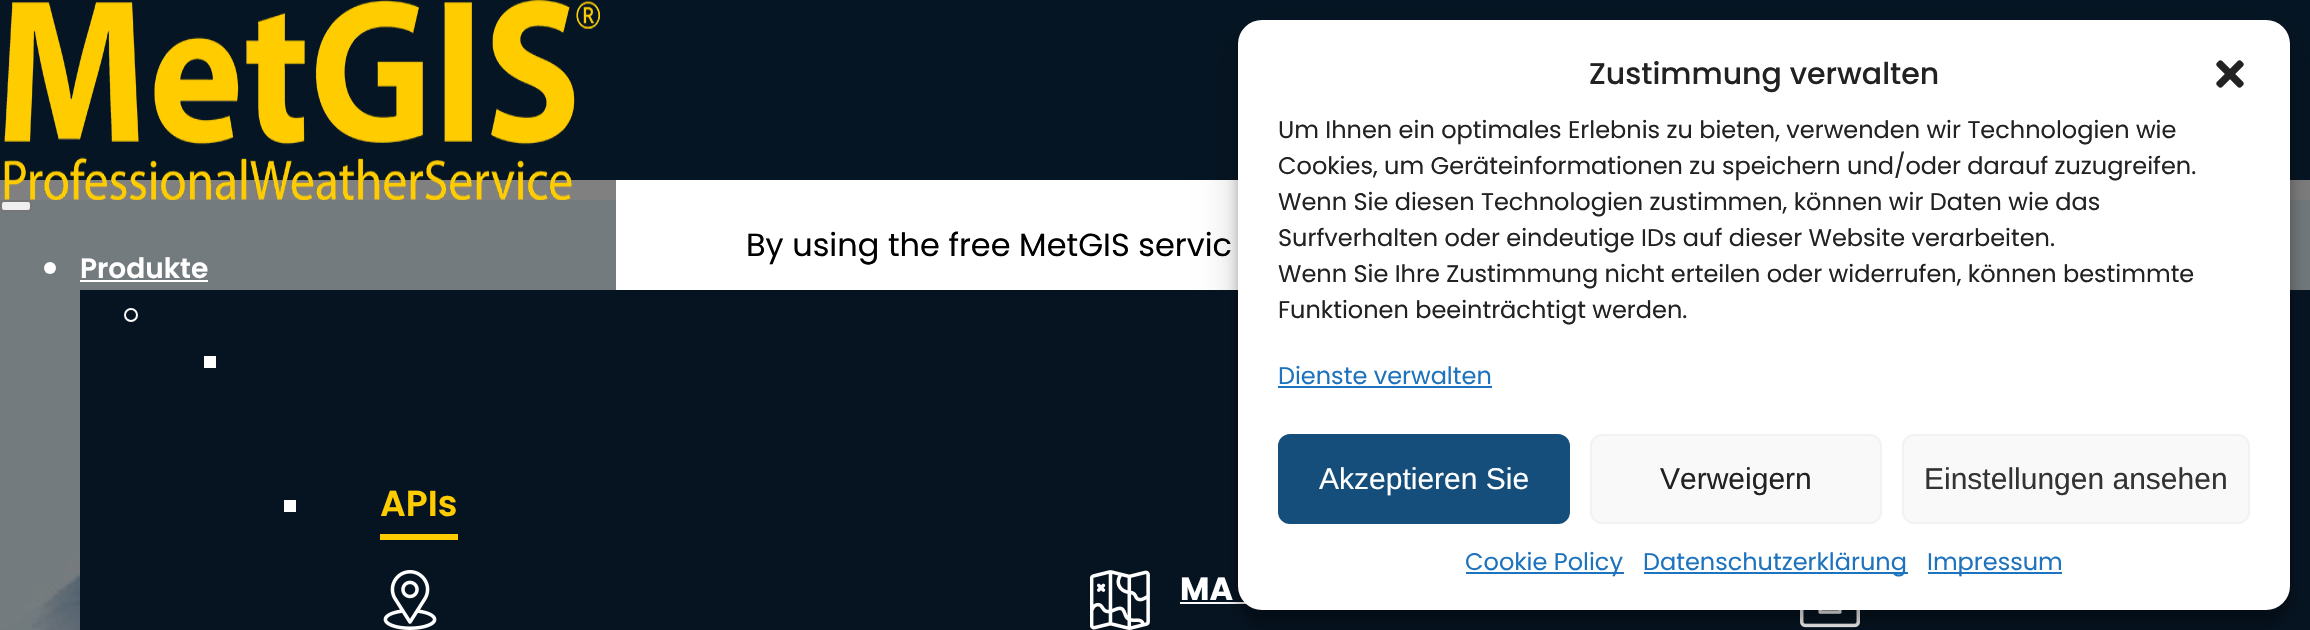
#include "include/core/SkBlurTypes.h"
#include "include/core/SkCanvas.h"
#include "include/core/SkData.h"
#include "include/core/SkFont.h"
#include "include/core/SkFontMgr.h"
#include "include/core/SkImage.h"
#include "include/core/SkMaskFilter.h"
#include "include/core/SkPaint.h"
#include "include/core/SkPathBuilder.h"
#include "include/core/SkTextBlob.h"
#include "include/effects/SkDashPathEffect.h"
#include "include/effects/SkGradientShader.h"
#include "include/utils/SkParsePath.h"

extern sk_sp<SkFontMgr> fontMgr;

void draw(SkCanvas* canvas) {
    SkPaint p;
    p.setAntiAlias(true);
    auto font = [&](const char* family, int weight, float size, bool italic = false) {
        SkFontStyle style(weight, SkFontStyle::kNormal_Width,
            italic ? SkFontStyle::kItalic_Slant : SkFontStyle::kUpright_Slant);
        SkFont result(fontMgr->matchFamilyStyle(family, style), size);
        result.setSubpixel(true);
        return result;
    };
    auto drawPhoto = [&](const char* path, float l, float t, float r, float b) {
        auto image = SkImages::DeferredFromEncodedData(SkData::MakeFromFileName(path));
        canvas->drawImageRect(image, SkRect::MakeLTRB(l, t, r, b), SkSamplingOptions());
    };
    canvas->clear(0xFF808080);
    drawPhoto("media/2.png", 0, 200, 2310, 630);
    p.setColor(0xFFFFFFFF);
    canvas->drawRect(SkRect::MakeLTRB(616, 180, 1238, 290), p);
    auto font1 = font("Poppins", 400, 32);
    p.setColor(0xFF000000);
    canvas->drawString("By using the free MetGIS servic", 746, 256, font1, p);
    p.setColor(0xFF061523);
    canvas->drawRect(SkRect::MakeLTRB(0, 0, 2310, 180), p);
    {
        const SkColor colors[] = {0xFF061422, 0xFF061422, 0x99061422, 0x00061422};
        const float stops[] = {0, 0.98f, 0.99f, 1};
        const SkPoint ends[] = {{1275, 290}, {1275, 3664}};
        p.setShader(SkGradientShader::MakeLinear(ends, colors, stops, 4, SkTileMode::kClamp));
        p.setAlpha(255);
    }
    canvas->drawRect(SkRect::MakeLTRB(80, 290, 2310, 630), p);
    p.setShader(nullptr);
    p.setColor(0xFFFFFFFF);
    canvas->drawRect(SkRect::MakeLTRB(1180, 602, 1247, 604), p);
    drawPhoto("media/6.png", 1800, 610, 1860, 628);
    p.setColor(0x3B000000);
    p.setMaskFilter(SkMaskFilter::MakeBlur(kNormal_SkBlurStyle, 6));
    canvas->drawRoundRect(SkRect::MakeLTRB(1238, 32, 2290, 622), 24, 24, p);
    p.setMaskFilter(nullptr);
    p.setColor(0x30000000);
    p.setMaskFilter(SkMaskFilter::MakeBlur(kNormal_SkBlurStyle, 20));
    canvas->drawRoundRect(SkRect::MakeLTRB(1238, 40, 2290, 630), 24, 24, p);
    p.setMaskFilter(nullptr);
    p.setColor(0xFFFFFFFF);
    canvas->drawRoundRect(SkRect::MakeLTRB(1238, 20, 2290, 610), 24, 24, p);
    auto font2 = font("Poppins", 500, 30);
    p.setColor(0xFF222222);
    canvas->drawString("Zustimmung verwalten", 1589, 84, font2, p);
    drawPhoto("media/1.png", 2216, 60, 2244, 88);
    auto font3 = font("Poppins", 400, 24);
    {
        const struct { const char* s; float x, y; } items[] = {
            {"Um Ihnen ein optimales Erlebnis zu bieten, verwenden wir Technologien wie", 1278, 138},
            {"Cookies, um Geräteinformationen zu speichern und/oder darauf zuzugreifen.", 1278, 174},
            {"Wenn Sie diesen Technologien zustimmen, können wir Daten wie das", 1278, 210},
            {"Surfverhalten oder eindeutige IDs auf dieser Website verarbeiten.", 1278, 246},
            {"Wenn Sie Ihre Zustimmung nicht erteilen oder widerrufen, können bestimmte", 1278, 282},
            {"Funktionen beeinträchtigt werden.", 1278, 318},
        };
        for (auto [s, x, y] : items) {
            canvas->drawString(s, x, y, font3, p);
        }
    }
    p.setColor(0xFF1E73BE);
    canvas->drawString("Dienste verwalten", 1278, 384, font3, p);
    canvas->drawRect(SkRect::MakeLTRB(1278, 386, 1492, 388), p);
    p.setColor(0xFF164E7B);
    canvas->drawRoundRect(SkRect::MakeLTRB(1279, 435, 1569, 523), 11, 11, p);
    p.setStyle(SkPaint::kStroke_Style);
    p.setStrokeWidth(2);
    canvas->drawRoundRect(SkRect::MakeLTRB(1279, 435, 1569, 523), 11, 11, p);
    auto font4 = font("Liberation Sans", 400, 30);
    p.setStyle(SkPaint::kFill_Style);
    p.setColor(0xFFFFFFFF);
    canvas->drawString("Akzeptieren Sie", 1319, 489, font4, p);
    p.setColor(0xFFF9F9F9);
    canvas->drawRoundRect(SkRect::MakeLTRB(1591, 435, 1881, 523), 11, 11, p);
    p.setStyle(SkPaint::kStroke_Style);
    p.setColor(0xFFF2F2F2);
    canvas->drawRoundRect(SkRect::MakeLTRB(1591, 435, 1881, 523), 11, 11, p);
    p.setStyle(SkPaint::kFill_Style);
    p.setColor(0xFF222222);
    canvas->drawString("Verweigern", 1660, 489, font4, p);
    p.setColor(0xFFF9F9F9);
    canvas->drawRoundRect(SkRect::MakeLTRB(1903, 435, 2249, 523), 11, 11, p);
    p.setStyle(SkPaint::kStroke_Style);
    p.setColor(0xFFF2F2F2);
    canvas->drawRoundRect(SkRect::MakeLTRB(1903, 435, 2249, 523), 11, 11, p);
    p.setStyle(SkPaint::kFill_Style);
    p.setColor(0xFF333333);
    canvas->drawString("Einstellungen ansehen", 1924, 489, font4, p);
    p.setColor(0xFF1E73BE);
    canvas->drawRect(SkRect::MakeLTRB(1466, 572, 1624, 574), p);
    canvas->drawString("Cookie Policy", 1465, 570, font3, p);
    canvas->drawRect(SkRect::MakeLTRB(1644, 572, 1908, 574), p);
    canvas->drawString("Datenschutzerklärung", 1643, 570, font3, p);
    canvas->drawRect(SkRect::MakeLTRB(1928, 572, 2062, 574), p);
    canvas->drawString("Impressum", 1927, 570, font3, p);
    drawPhoto("media/3.png", 4, 0, 600, 200);
    p.setColor(0xFFEFEFEF);
    canvas->drawRoundRect(SkRect::MakeLTRB(1, 201, 31, 211), 3, 3, p);
    p.setStyle(SkPaint::kStroke_Style);
    p.setColor(0xFF767676);
    canvas->drawRoundRect(SkRect::MakeLTRB(1, 201, 31, 211), 3, 3, p);
    p.setStyle(SkPaint::kFill_Style);
    p.setColor(0xFFFFFFFF);
    canvas->drawCircle(50, 268, 6, p);
    auto font5 = font("Poppins", 600, 28);
    canvas->drawString("Produkte", 80, 278, font5, p);
    canvas->drawRect(SkRect::MakeLTRB(80, 280, 208, 282), p);
    p.setStyle(SkPaint::kStroke_Style);
    canvas->drawCircle(131, 315, 6, p);
    p.setStyle(SkPaint::kFill_Style);
    canvas->drawRect(SkRect::MakeLTRB(204, 356, 216, 368), p);
    canvas->drawRect(SkRect::MakeLTRB(284, 500, 296, 512), p);
    auto font6 = font("Poppins", 600, 36);
    p.setColor(0xFFFFCC00);
    canvas->drawString("APIs", 380, 516, font6, p);
    canvas->drawRect(SkRect::MakeLTRB(380, 534, 458, 540), p);
    drawPhoto("media/4.png", 383, 570, 437, 630);
    drawPhoto("media/5.png", 1090, 570, 1150, 630);
    auto font7 = font("Poppins", 700, 32);
    p.setColor(0xFFFFFFFF);
    canvas->drawString("MA", 1180, 600, font7, p);
}
